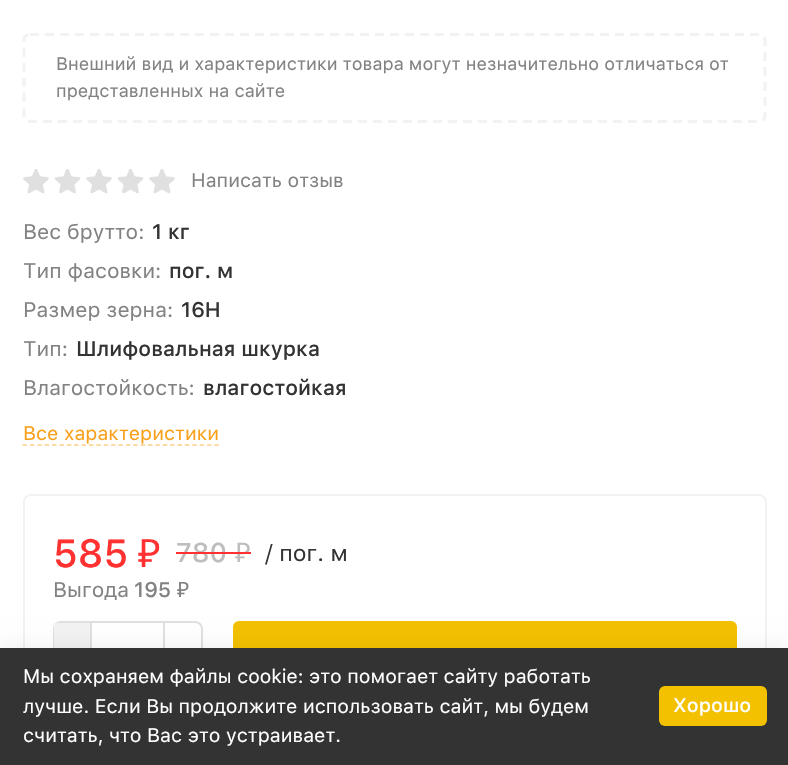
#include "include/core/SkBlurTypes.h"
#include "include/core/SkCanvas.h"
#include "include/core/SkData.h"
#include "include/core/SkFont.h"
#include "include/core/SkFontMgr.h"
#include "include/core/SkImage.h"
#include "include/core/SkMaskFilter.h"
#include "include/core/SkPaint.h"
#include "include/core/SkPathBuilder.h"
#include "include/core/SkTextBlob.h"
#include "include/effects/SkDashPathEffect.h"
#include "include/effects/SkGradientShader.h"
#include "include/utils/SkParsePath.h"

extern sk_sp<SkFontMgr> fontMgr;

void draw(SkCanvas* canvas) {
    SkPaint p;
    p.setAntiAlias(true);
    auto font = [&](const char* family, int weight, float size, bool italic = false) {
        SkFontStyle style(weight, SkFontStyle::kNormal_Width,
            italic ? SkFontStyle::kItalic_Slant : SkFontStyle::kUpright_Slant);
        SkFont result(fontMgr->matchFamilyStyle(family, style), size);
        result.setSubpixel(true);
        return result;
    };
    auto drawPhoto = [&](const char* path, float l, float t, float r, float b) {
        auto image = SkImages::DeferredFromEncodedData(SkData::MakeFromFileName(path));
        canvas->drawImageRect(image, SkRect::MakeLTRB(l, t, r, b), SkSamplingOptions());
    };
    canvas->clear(0xFFFFFFFF);
    p.setStyle(SkPaint::kStroke_Style);
    p.setStrokeWidth(3);
    p.setColor(0xFFF2F2F2);
    p.setPathEffect(SkDashPathEffect::Make({{9, 6}}, 0));
    canvas->drawPath(SkPathBuilder().moveTo(30, 34.5f).lineTo(759, 34.5f).cubicTo(762.5f, 34.5f, 765, 37, 765, 40.5f).lineTo(765, 115.5f).cubicTo(765, 119, 762.5f, 121.5f, 759, 121.5f).lineTo(30, 121.5f).cubicTo(26.5f, 121.5f, 24, 119, 24, 115.5f).lineTo(24, 40.5f).cubicTo(24, 37, 26.5f, 34.5f, 30, 34.5f).close().detach(), p);
    p.setPathEffect(nullptr);
    auto font1 = font("SF Pro Text", 400, 18);
    p.setStyle(SkPaint::kFill_Style);
    p.setColor(0xFF828282);
    canvas->drawString("Внешний вид и характеристики товара могут незначительно отличаться от", 56, 70, font1, p);
    canvas->drawString("представленных на сайте", 56, 97, font1, p);
    drawPhoto("media/1.png", 23, 169, 49, 194);
    drawPhoto("media/2.png", 54, 169, 81, 194);
    drawPhoto("media/1.png", 86, 169, 112, 194);
    drawPhoto("media/2.png", 117, 169, 144, 194);
    drawPhoto("media/1.png", 149, 169, 175, 194);
    auto font2 = font("SF Pro Text", 400, 19.5f);
    canvas->drawString("Написать отзыв", 191, 187, font2, p);
    auto font3 = font("SF Pro Text", 400, 21);
    canvas->drawString("Вес брутто:", 23, 239, font3, p);
    auto font4 = font("SF Pro Text", 500, 21);
    p.setColor(0xFF333333);
    canvas->drawString("1 кг", 152, 239, font4, p);
    p.setColor(0xFF828282);
    canvas->drawString("Тип фасовки:", 23, 278, font3, p);
    p.setColor(0xFF333333);
    canvas->drawString("пог. м", 169, 278, font4, p);
    p.setColor(0xFF828282);
    canvas->drawString("Размер зерна:", 23, 317, font3, p);
    p.setColor(0xFF333333);
    canvas->drawString("16H", 181, 317, font4, p);
    p.setColor(0xFF828282);
    canvas->drawString("Тип:", 23, 356, font3, p);
    p.setColor(0xFF333333);
    canvas->drawString("Шлифовальная шкурка", 76, 356, font4, p);
    p.setColor(0xFF828282);
    canvas->drawString("Влагостойкость:", 23, 395, font3, p);
    p.setColor(0xFF333333);
    canvas->drawString("влагостойкая", 203, 395, font4, p);
    p.setColor(0xFFF9A01B);
    canvas->drawString("Все характеристики", 23, 440, font2, p);
    p.setStyle(SkPaint::kStroke_Style);
    p.setStrokeWidth(1.5f);
    p.setColor(0xFFFCCF8D);
    p.setPathEffect(SkDashPathEffect::Make({{4.5f, 2.88f}}, 0));
    canvas->drawPath(SkPathBuilder().moveTo(22.5f, 445).lineTo(219, 445).detach(), p);
    p.setPathEffect(nullptr);
    p.setStrokeWidth(2);
    p.setColor(0xFFF2F2F2);
    canvas->drawRoundRect(SkRect::MakeLTRB(24, 495, 766, 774), 7, 7, p);
    auto font5 = font("SF Pro Text", 500, 39);
    p.setStyle(SkPaint::kFill_Style);
    p.setColor(0xFFFF3131);
    canvas->drawString("585", 53, 567, font5, p);
    auto font6 = font("Noto Sans", 400, 39);
    canvas->drawString("₽", 138, 567, font6, p);
    auto font7 = font("SF Pro Text", 500, 27);
    p.setColor(0xFFBDBDBD);
    canvas->drawString("780", 176, 562, font7, p);
    auto font8 = font("Noto Sans", 400, 27);
    canvas->drawString("₽", 235, 562, font8, p);
    p.setColor(0xFFFF3131);
    canvas->drawRect(SkRect::MakeLTRB(176, 552, 251, 554), p);
    auto font9 = font("SF Pro Text", 400, 23);
    p.setColor(0xFF333333);
    canvas->drawString("/ пог. м", 265, 561, font9, p);
    p.setColor(0xFF828282);
    canvas->drawString("Выгода", 53, 597, font3, p);
    canvas->drawString("195", 134, 597, font4, p);
    auto font10 = font("Noto Sans", 400, 21);
    canvas->drawString("₽", 177, 597, font10, p);
    p.setStyle(SkPaint::kStroke_Style);
    p.setColor(0xFFE0E0E0);
    canvas->drawRoundRect(SkRect::MakeLTRB(54, 622, 202, 680), 7, 7, p);
    p.setStyle(SkPaint::kFill_Style);
    p.setColor(0xFFF2F2F2);
    canvas->drawRect(SkRect::MakeLTRB(54, 623, 90, 648), p);
    p.setStyle(SkPaint::kStroke_Style);
    p.setColor(0xFFE0E0E0);
    canvas->drawRect(SkRect::MakeLTRB(91, 622, 164, 680), p);
    p.setStyle(SkPaint::kFill_Style);
    p.setColor(0xFFF3C100);
    canvas->drawRoundRect(SkRect::MakeLTRB(233, 621, 737, 683), 6, 6, p);
    p.setColor(0x12000000);
    p.setMaskFilter(SkMaskFilter::MakeBlur(kNormal_SkBlurStyle, 11));
    canvas->drawRect(SkRect::MakeLTRB(0, 648, 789, 765), p);
    p.setMaskFilter(nullptr);
    p.setColor(0xFF333333);
    canvas->drawRect(SkRect::MakeLTRB(0, 648, 788, 765), p);
    p.setColor(0xFFFFFFFF);
    {
        const struct { const char* s; float x, y; } items[] = {
            {"Мы сохраняем файлы cookie: это помогает сайту работать", 23, 683},
            {"лучше. Если Вы продолжите использовать сайт, мы будем", 23, 713},
            {"считать, что Вас это устраивает.", 23, 742},
        };
        for (auto [s, x, y] : items) {
            canvas->drawString(s, x, y, font2, p);
        }
    }
    p.setColor(0xFFF3C100);
    canvas->drawRoundRect(SkRect::MakeLTRB(659, 686, 767, 726), 6, 6, p);
    auto font11 = font("SF Pro Text", 500, 19.5f);
    p.setColor(0xFFFFFFFF);
    canvas->drawString("Хорошо", 673, 712, font11, p);
}
